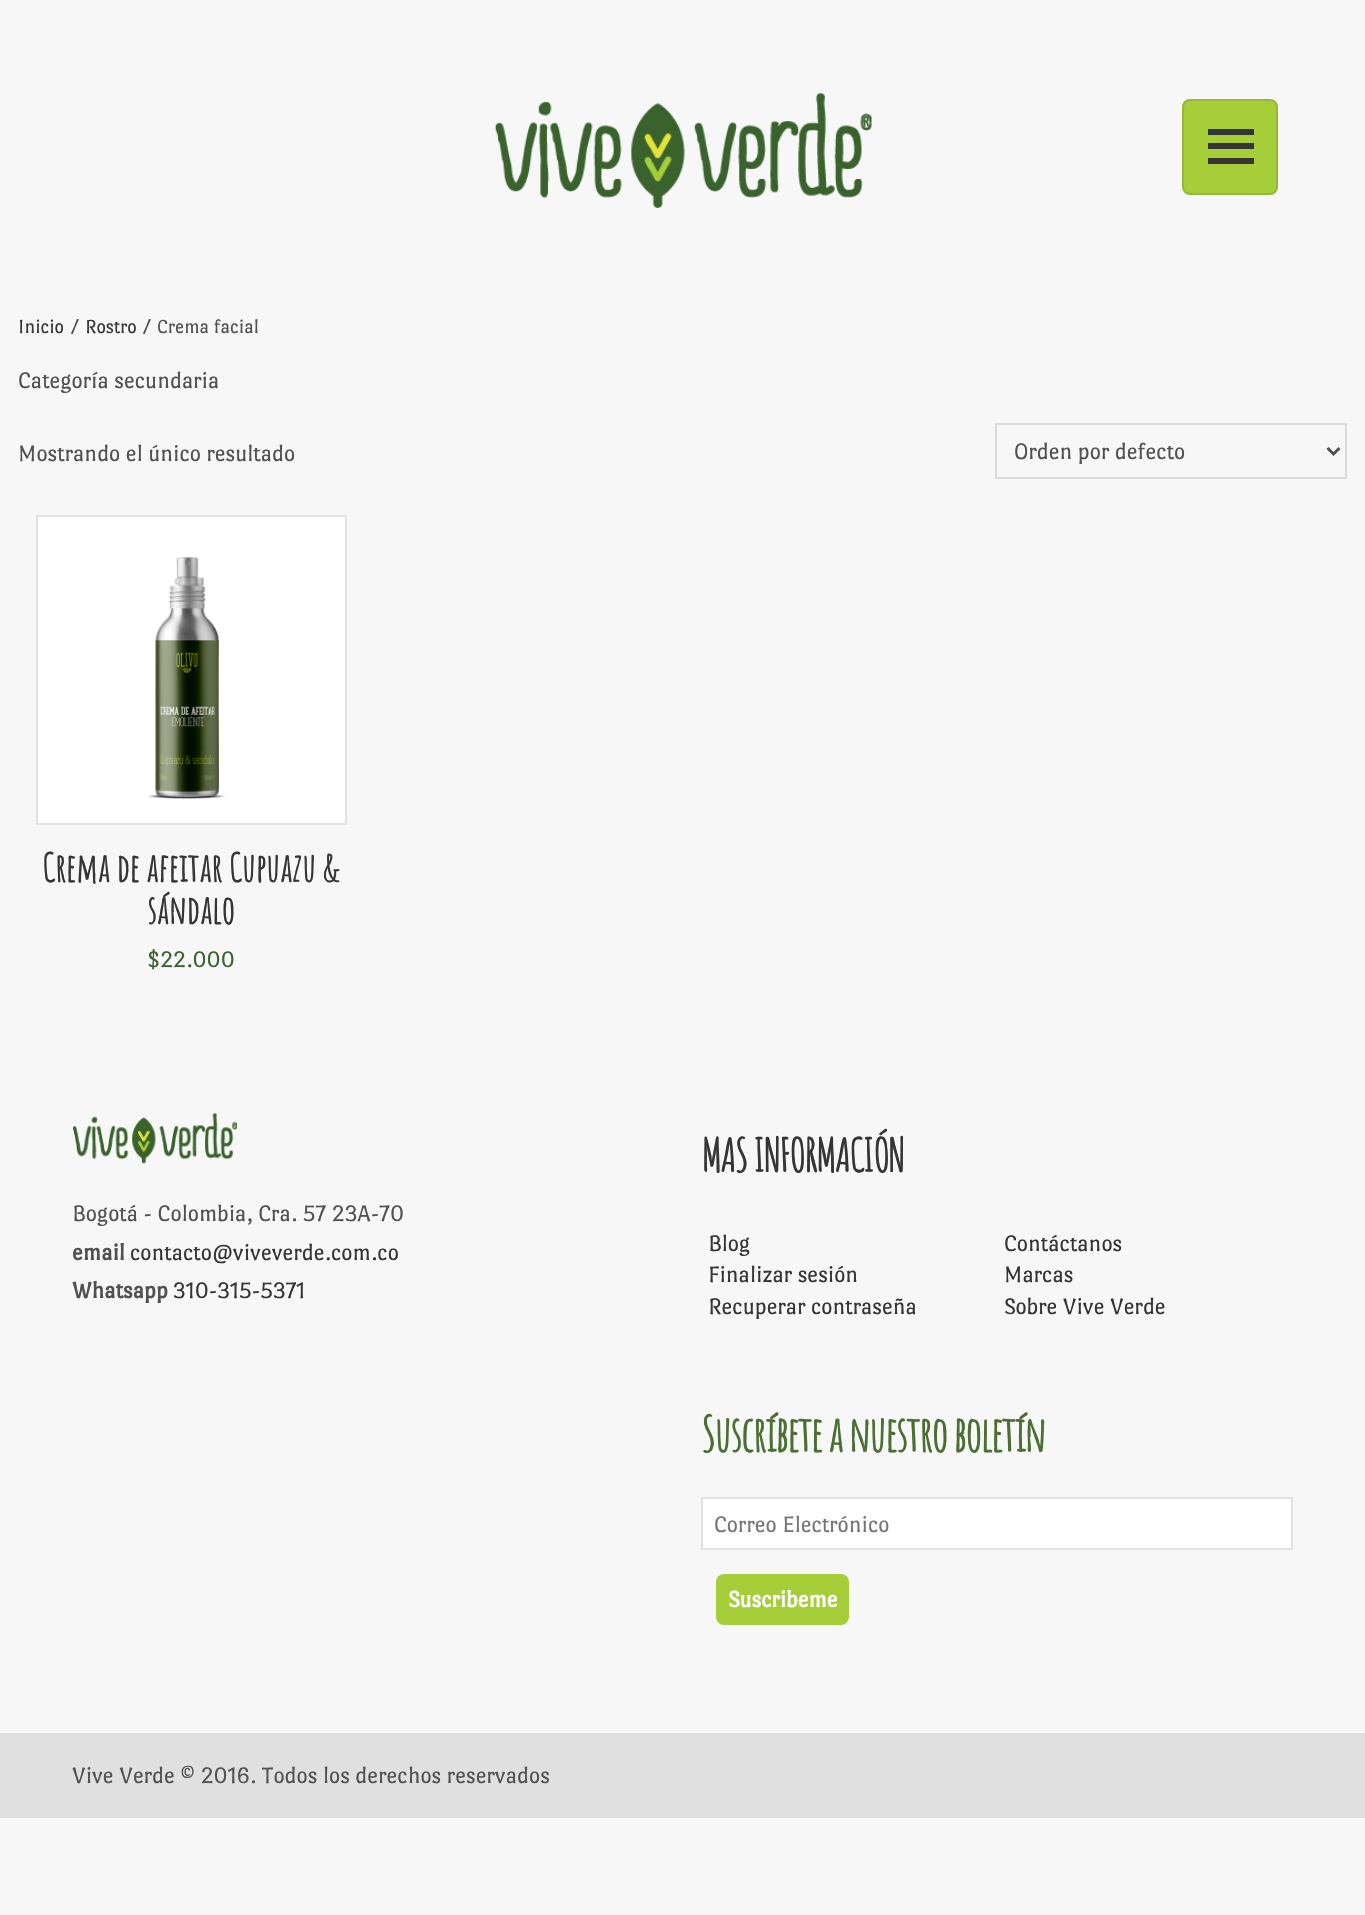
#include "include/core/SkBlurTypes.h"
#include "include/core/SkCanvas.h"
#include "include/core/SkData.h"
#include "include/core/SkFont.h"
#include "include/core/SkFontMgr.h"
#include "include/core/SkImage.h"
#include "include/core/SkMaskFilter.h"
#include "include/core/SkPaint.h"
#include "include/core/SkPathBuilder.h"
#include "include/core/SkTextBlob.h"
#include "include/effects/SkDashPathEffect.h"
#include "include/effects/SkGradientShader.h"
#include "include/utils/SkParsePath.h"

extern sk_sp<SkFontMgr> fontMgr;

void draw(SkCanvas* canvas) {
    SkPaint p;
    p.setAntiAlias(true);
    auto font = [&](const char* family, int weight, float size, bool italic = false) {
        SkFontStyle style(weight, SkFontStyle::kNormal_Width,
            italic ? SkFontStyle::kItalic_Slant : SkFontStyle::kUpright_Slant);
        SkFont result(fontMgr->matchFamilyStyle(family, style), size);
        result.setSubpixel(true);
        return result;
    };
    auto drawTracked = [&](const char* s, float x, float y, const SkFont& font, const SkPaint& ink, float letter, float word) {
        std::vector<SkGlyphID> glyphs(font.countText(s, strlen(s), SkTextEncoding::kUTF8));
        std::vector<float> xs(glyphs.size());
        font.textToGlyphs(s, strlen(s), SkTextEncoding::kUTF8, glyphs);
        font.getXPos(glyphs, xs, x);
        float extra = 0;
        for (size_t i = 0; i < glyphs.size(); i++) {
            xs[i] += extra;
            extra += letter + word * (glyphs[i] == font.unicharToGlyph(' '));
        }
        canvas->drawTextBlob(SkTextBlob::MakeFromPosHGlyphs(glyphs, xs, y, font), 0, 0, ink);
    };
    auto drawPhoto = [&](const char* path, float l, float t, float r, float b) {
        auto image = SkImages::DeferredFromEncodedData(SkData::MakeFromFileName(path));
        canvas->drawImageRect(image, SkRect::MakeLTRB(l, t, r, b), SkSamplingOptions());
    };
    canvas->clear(0xFFF7F7F7);
    drawPhoto("media/1.png", 494, 93, 872, 208);
    p.setColor(0xFFA6CE39);
    canvas->drawRoundRect(SkRect::MakeLTRB(1182, 99, 1278, 195), 8, 8, p);
    p.setStyle(SkPaint::kStroke_Style);
    p.setStrokeWidth(2);
    p.setColor(0x263C3C3C);
    canvas->drawRoundRect(SkRect::MakeLTRB(1183, 100, 1277, 194), 7, 7, p);
    p.setStyle(SkPaint::kFill_Style);
    p.setColor(0xFF353535);
    canvas->drawPath(SkPathBuilder().moveTo(1208, 164).lineTo(1208, 158).lineTo(1254, 158).lineTo(1254, 164).close().moveTo(1208, 129).lineTo(1254, 129).lineTo(1254, 135).lineTo(1208, 135).close().moveTo(1208, 149).lineTo(1208, 143).lineTo(1254, 143).lineTo(1254, 149).close().detach(), p);
    auto font1 = font("Port Lligat Sans", 400, 20.25f);
    canvas->drawString("Inicio", 18, 333, font1, p);
    p.setColor(0xFF515151);
    canvas->drawString("/", 69, 333, font1, p);
    p.setColor(0xFF353535);
    canvas->drawString("Rostro", 85, 333, font1, p);
    p.setColor(0xFF515151);
    canvas->drawString("/ Crema facial", 141, 333, font1, p);
    auto font2 = font("Port Lligat Sans", 400, 24);
    canvas->drawString("Categoría secundaria", 18, 388, font2, p);
    canvas->drawString("Mostrando el único resultado", 18, 461, font2, p);
    p.setStyle(SkPaint::kStroke_Style);
    p.setColor(0xFFDBDBDB);
    canvas->drawRect(SkRect::MakeLTRB(996, 424, 1346, 478), p);
    p.setStrokeWidth(3);
    p.setColor(0xFF515151);
    canvas->drawPath(SkPathBuilder().moveTo(1327.5f, 448).lineTo(1333.5f, 454).lineTo(1339.5f, 448).detach(), p);
    p.setStyle(SkPaint::kFill_Style);
    canvas->drawString("Orden por defecto", 1014, 459, font2, p);
    p.setColor(0xFFFFFFFF);
    canvas->drawRect(SkRect::MakeLTRB(37, 516, 346, 824), p);
    p.setStyle(SkPaint::kStroke_Style);
    p.setStrokeWidth(2);
    p.setColor(0xFFE2E2E2);
    canvas->drawRect(SkRect::MakeLTRB(37, 516, 346, 824), p);
    drawPhoto("media/2.png", 148, 557, 225, 799);
    auto font3 = font("Amatic SC", 700, 38.5f);
    p.setStyle(SkPaint::kFill_Style);
    p.setColor(0xFF353535);
    canvas->drawString("Crema de afeitar Cupuazu &", 42, 882, font3, p);
    canvas->drawString("sándalo", 147, 924, font3, p);
    p.setColor(0xFF39622D);
    canvas->drawString("$22.000", 147, 967, font2, p);
    drawPhoto("media/3.png", 73, 1112, 237, 1164);
    p.setColor(0xFF515151);
    canvas->drawString("Bogotá - Colombia, Cra. 57 23A-70", 72, 1221, font2, p);
    auto font4 = font("Port Lligat Sans", 700, 24);
    canvas->drawString("email", 72, 1260, font4, p);
    p.setColor(0xFF353535);
    canvas->drawString("contacto@viveverde.com.co", 130, 1260, font2, p);
    p.setColor(0xFF515151);
    canvas->drawString("Whatsapp", 72, 1298, font4, p);
    p.setColor(0xFF353535);
    canvas->drawString("310-315-5371", 173, 1298, font2, p);
    auto font5 = font("Amatic SC", 700, 45);
    drawTracked("MAS INFORMACIÓN", 701, 1172, font5, p, -1.5f, 0);
    {
        const struct { const char* s; float x, y; } items[] = {
            {"Blog", 708, 1251},
            {"Contáctanos", 1004, 1251},
            {"Finalizar sesión", 708, 1282},
            {"Marcas", 1004, 1282},
            {"Recuperar contraseña", 708, 1314},
            {"Sobre Vive Verde", 1004, 1314},
        };
        for (auto [s, x, y] : items) {
            canvas->drawString(s, x, y, font2, p);
        }
    }
    auto font6 = font("Amatic SC", 700, 48);
    p.setColor(0xFF4B6E33);
    drawTracked("Suscríbete a nuestro boletín", 701, 1452, font6, p, -1.5f, 0);
    p.setColor(0xFFFFFFFF);
    canvas->drawRect(SkRect::MakeLTRB(702, 1498, 1292, 1549), p);
    p.setStyle(SkPaint::kStroke_Style);
    p.setColor(0xFFE2E2E2);
    canvas->drawRect(SkRect::MakeLTRB(702, 1498, 1292, 1549), p);
    p.setStyle(SkPaint::kFill_Style);
    p.setColor(0xFF757575);
    canvas->drawString("Correo Electrónico", 714, 1532, font2, p);
    p.setColor(0xFFA6CE39);
    canvas->drawRoundRect(SkRect::MakeLTRB(716, 1574, 849, 1625), 8, 8, p);
    p.setColor(0xFFFFFFFF);
    canvas->drawString("Suscribeme", 728, 1607, font4, p);
    p.setColor(0xFFE0E0E0);
    canvas->drawRect(SkRect::MakeLTRB(0, 1733, 1365, 1818), p);
    p.setColor(0xFF515151);
    canvas->drawString("Vive Verde © 2016. Todos los derechos reservados", 72, 1783, font2, p);
}
